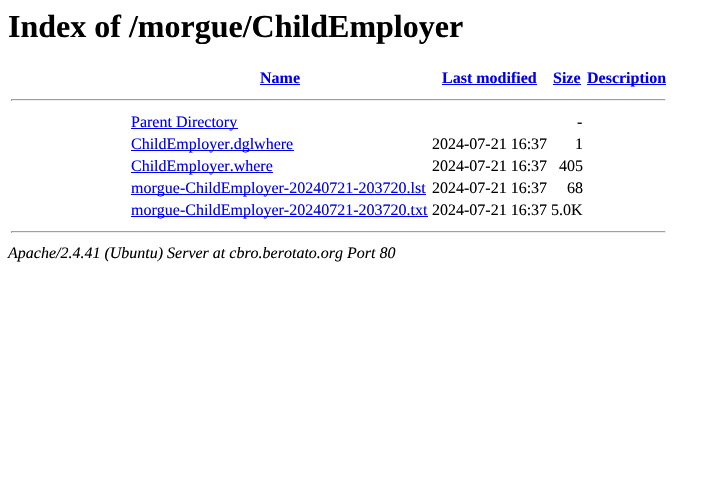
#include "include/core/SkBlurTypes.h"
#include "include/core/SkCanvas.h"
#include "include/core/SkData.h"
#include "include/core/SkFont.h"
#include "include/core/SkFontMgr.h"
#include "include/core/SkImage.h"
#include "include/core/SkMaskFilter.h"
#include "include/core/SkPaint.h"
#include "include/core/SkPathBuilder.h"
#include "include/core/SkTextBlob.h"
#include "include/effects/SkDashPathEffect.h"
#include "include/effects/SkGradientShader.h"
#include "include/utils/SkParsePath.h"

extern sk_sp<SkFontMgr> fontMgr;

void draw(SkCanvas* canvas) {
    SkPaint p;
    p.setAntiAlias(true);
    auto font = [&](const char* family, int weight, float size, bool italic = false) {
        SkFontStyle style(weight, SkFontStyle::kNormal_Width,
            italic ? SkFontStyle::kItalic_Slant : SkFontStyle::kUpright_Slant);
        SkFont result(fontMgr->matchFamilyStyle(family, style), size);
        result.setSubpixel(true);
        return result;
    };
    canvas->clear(0xFFFFFFFF);
    auto font1 = font("Liberation Serif", 700, 32);
    p.setColor(0xFF000000);
    canvas->drawString("Index of /morgue/ChildEmployer", 8, 37, font1, p);
    auto font2 = font("Liberation Serif", 700, 16);
    p.setColor(0xFF0000EE);
    canvas->drawString("Name", 260, 83, font2, p);
    canvas->drawRect(SkRect::MakeLTRB(260, 84, 300, 85), p);
    canvas->drawString("Last modified", 442, 83, font2, p);
    canvas->drawRect(SkRect::MakeLTRB(442, 84, 537, 85), p);
    canvas->drawString("Size", 553, 83, font2, p);
    canvas->drawRect(SkRect::MakeLTRB(553, 84, 581, 85), p);
    canvas->drawRect(SkRect::MakeLTRB(587, 84, 666, 85), p);
    canvas->drawString("Description", 587, 83, font2, p);
    {
        const struct { float l, t, r, b; SkColor color; } items[] = {
            {11, 99, 666, 100, 0xFF9F9F9F},
            {665, 99, 666, 101, 0xFFEEEEEE},
            {11, 100, 666, 101, 0xFFEEEEEE},
            {11, 99, 12, 101, 0xFF9F9F9F},
            {131, 128, 238, 129, 0xFF0000EE},
        };
        for (auto [l, t, r, b, color] : items) {
            p.setColor(color);
            canvas->drawRect(SkRect::MakeLTRB(l, t, r, b), p);
        }
    }
    auto font3 = font("Liberation Serif", 400, 16);
    canvas->drawString("Parent Directory", 131, 127, font3, p);
    p.setColor(0xFF000000);
    canvas->drawString("-", 577, 127, font3, p);
    p.setColor(0xFF0000EE);
    canvas->drawRect(SkRect::MakeLTRB(131, 150, 294, 151), p);
    canvas->drawString("ChildEmployer.dglwhere", 131, 149, font3, p);
    p.setColor(0xFF000000);
    canvas->drawString("2024-07-21 16:37", 432, 149, font3, p);
    canvas->drawString("1", 575, 149, font3, p);
    p.setColor(0xFF0000EE);
    canvas->drawRect(SkRect::MakeLTRB(131, 172, 273, 173), p);
    canvas->drawString("ChildEmployer.where", 131, 171, font3, p);
    p.setColor(0xFF000000);
    canvas->drawString("2024-07-21 16:37", 432, 171, font3, p);
    canvas->drawString("405", 559, 171, font3, p);
    p.setColor(0xFF0000EE);
    canvas->drawRect(SkRect::MakeLTRB(131, 194, 426, 195), p);
    canvas->drawString("morgue-ChildEmployer-20240721-203720.lst", 131, 193, font3, p);
    p.setColor(0xFF000000);
    canvas->drawString("2024-07-21 16:37", 432, 193, font3, p);
    canvas->drawString("68", 567, 193, font3, p);
    p.setColor(0xFF0000EE);
    canvas->drawRect(SkRect::MakeLTRB(131, 216, 428, 217), p);
    canvas->drawString("morgue-ChildEmployer-20240721-203720.txt", 131, 215, font3, p);
    p.setColor(0xFF000000);
    canvas->drawString("2024-07-21 16:37 5.0K", 432, 215, font3, p);
    {
        const struct { float l, t, r, b; SkColor color; } items[] = {
            {11, 231, 666, 232, 0xFF9F9F9F},
            {665, 231, 666, 233, 0xFFEEEEEE},
            {11, 232, 666, 233, 0xFFEEEEEE},
            {11, 231, 12, 233, 0xFF9F9F9F},
        };
        for (auto [l, t, r, b, color] : items) {
            p.setColor(color);
            canvas->drawRect(SkRect::MakeLTRB(l, t, r, b), p);
        }
    }
    auto font4 = font("Liberation Serif", 400, 16, true);
    p.setColor(0xFF000000);
    canvas->drawString("Apache/2.4.41 (Ubuntu) Server at cbro.berotato.org Port 80", 8, 258, font4, p);
}
